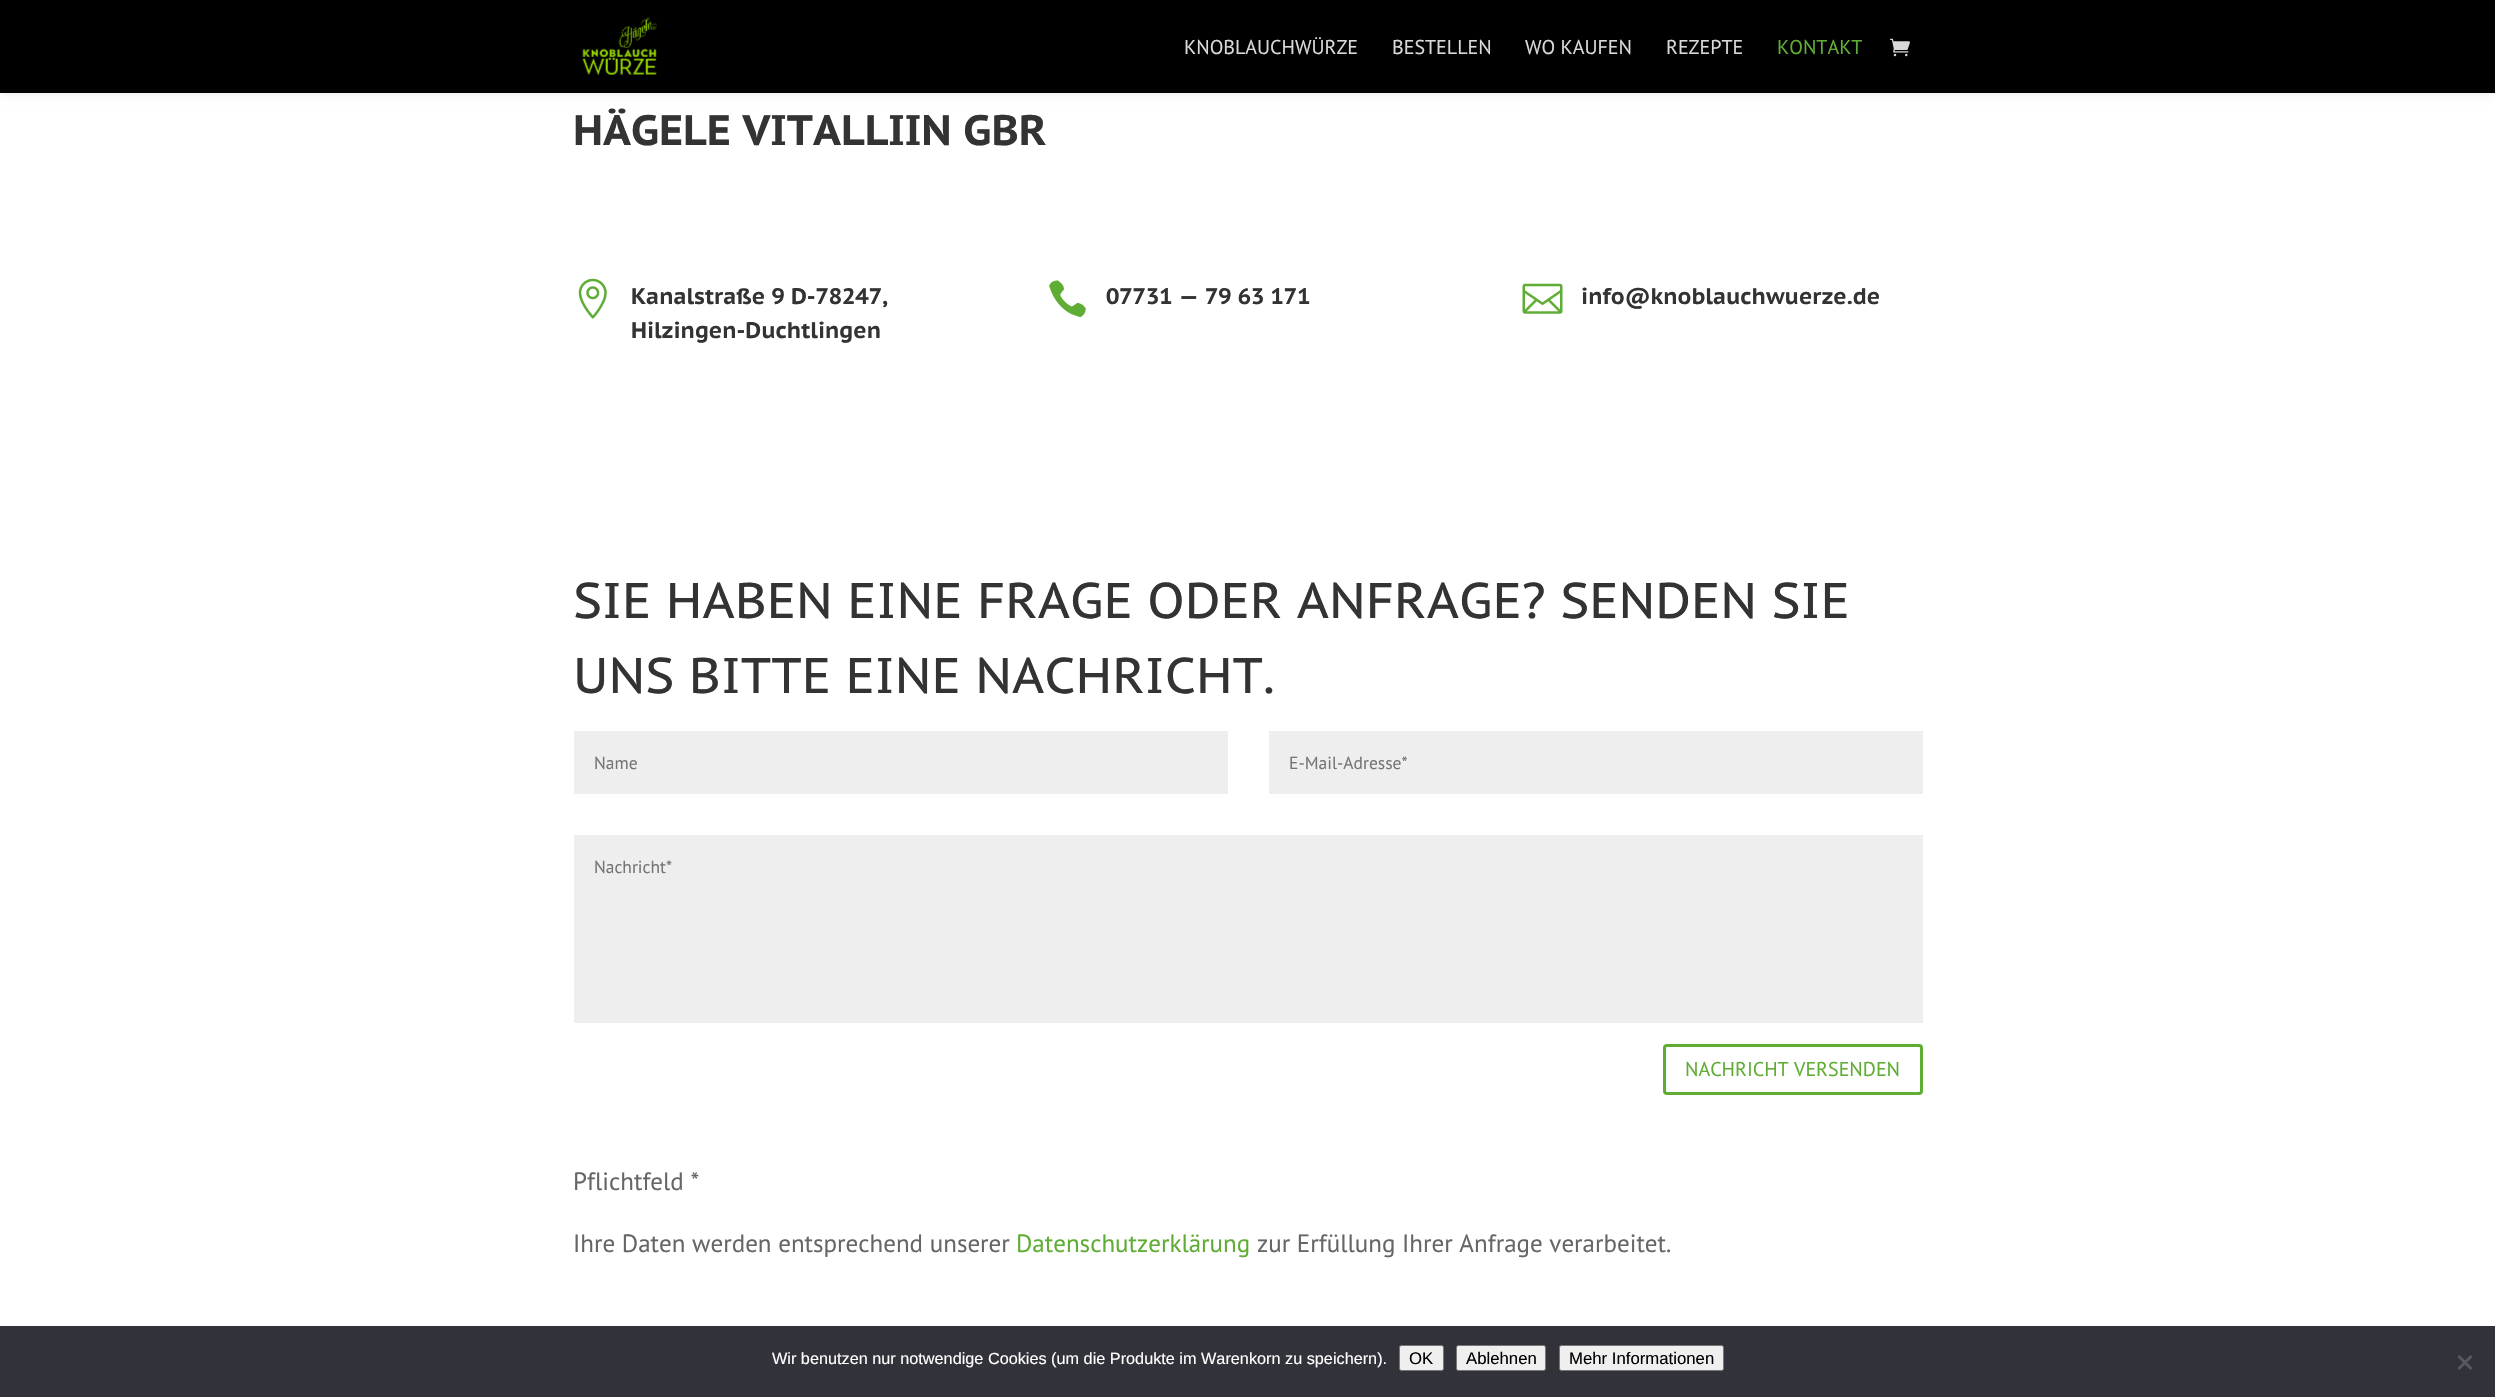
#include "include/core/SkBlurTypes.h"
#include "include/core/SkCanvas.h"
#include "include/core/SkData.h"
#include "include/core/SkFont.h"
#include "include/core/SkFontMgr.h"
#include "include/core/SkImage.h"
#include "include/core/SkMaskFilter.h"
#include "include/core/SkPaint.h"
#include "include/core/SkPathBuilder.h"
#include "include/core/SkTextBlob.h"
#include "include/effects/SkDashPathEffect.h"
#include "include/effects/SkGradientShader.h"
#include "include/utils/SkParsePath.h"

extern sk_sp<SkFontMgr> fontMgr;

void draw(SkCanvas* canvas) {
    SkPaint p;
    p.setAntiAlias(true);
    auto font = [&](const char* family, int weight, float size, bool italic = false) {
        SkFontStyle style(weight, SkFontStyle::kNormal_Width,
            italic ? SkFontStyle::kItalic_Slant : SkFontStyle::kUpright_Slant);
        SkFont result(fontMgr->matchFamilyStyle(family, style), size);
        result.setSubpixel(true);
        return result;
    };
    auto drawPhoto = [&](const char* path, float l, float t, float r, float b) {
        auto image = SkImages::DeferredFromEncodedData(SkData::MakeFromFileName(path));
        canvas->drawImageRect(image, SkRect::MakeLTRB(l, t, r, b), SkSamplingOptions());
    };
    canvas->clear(0xFFFFFFFF);
    p.setColor(0x1A000000);
    p.setMaskFilter(SkMaskFilter::MakeBlur(kNormal_SkBlurStyle, 4.5f));
    canvas->drawRect(SkRect::MakeLTRB(0, 0, 2495, 93), p);
    p.setMaskFilter(nullptr);
    p.setColor(0xFF000000);
    canvas->drawRect(SkRect::MakeLTRB(0, 0, 2495, 93), p);
    drawPhoto("media/1.png", 582, 17, 657, 75);
    auto font1 = font("PT Sans", 400, 20);
    p.setColor(0xFFD9D9D9);
    {
        const struct { const char* s; float x, y; } items[] = {
            {"KNOBLAUCHWÜRZE", 1184, 54},
            {"BESTELLEN", 1392, 54},
            {"WO KAUFEN", 1525, 54},
            {"REZEPTE", 1666, 54},
        };
        for (auto [s, x, y] : items) {
            canvas->drawString(s, x, y, font1, p);
        }
    }
    p.setColor(0xFF5FAD35);
    canvas->drawString("KONTAKT", 1777, 54, font1, p);
    drawPhoto("media/2.png", 1890, 38, 1910, 57);
    auto font2 = font("PT Sans Caption", 700, 42.5f);
    p.setColor(0xFF333333);
    canvas->drawString("HÄGELE VITALLIIN GBR", 573, 145, font2, p);
    drawPhoto("media/3.png", 578, 278, 607, 319);
    auto font3 = font("PT Sans Caption", 700, 22.5f);
    canvas->drawString("Kanalstraße 9 D-78247,", 631, 304, font3, p);
    canvas->drawString("Hilzingen-Duchtlingen", 631, 338, font3, p);
    drawPhoto("media/4.png", 1049, 280, 1086, 318);
    canvas->drawString("07731 — 79 63 171", 1106, 304, font3, p);
    drawPhoto("media/5.png", 1522, 283, 1563, 314);
    canvas->drawString("info@knoblauchwuerze.de", 1581, 304, font3, p);
    auto font4 = font("PT Sans Caption", 400, 50);
    canvas->drawString("SIE HABEN EINE FRAGE ODER ANFRAGE? SENDEN SIE", 573, 618, font4, p);
    canvas->drawString("UNS BITTE EINE NACHRICHT.", 573, 693, font4, p);
    p.setColor(0xFFEEEEEE);
    canvas->drawRect(SkRect::MakeLTRB(574, 731, 1228, 794), p);
    auto font5 = font("PT Sans", 400, 17.5f);
    p.setColor(0xFF757575);
    canvas->drawString("Name", 594, 769, font5, p);
    p.setColor(0xFFEEEEEE);
    canvas->drawRect(SkRect::MakeLTRB(1269, 731, 1923, 794), p);
    p.setColor(0xFF757575);
    canvas->drawString("E-Mail-Adresse*", 1289, 769, font5, p);
    p.setColor(0xFFEEEEEE);
    canvas->drawRect(SkRect::MakeLTRB(574, 835, 1923, 1023), p);
    p.setColor(0xFF757575);
    canvas->drawString("Nachricht*", 594, 873, font5, p);
    p.setStyle(SkPaint::kStroke_Style);
    p.setStrokeWidth(3);
    p.setColor(0xFF5FAD35);
    canvas->drawRoundRect(SkRect::MakeLTRB(1664.5f, 1045.5f, 1921.5f, 1093.5f), 2.5f, 2.5f, p);
    p.setStyle(SkPaint::kFill_Style);
    canvas->drawString("NACHRICHT VERSENDEN", 1685, 1076, font1, p);
    auto font6 = font("PT Sans", 400, 25);
    p.setColor(0xFF666666);
    canvas->drawString("Pflichtfeld *", 573, 1190, font6, p);
    canvas->drawString("Ihre Daten werden entsprechend unserer", 573, 1252, font6, p);
    p.setColor(0xFF5FAD35);
    canvas->drawString("Datenschutzerklärung", 1016, 1252, font6, p);
    p.setColor(0xFF666666);
    canvas->drawString("zur Erfüllung Ihrer Anfrage verarbeitet.", 1257, 1252, font6, p);
    p.setColor(0xFF32323A);
    canvas->drawRect(SkRect::MakeLTRB(0, 1326, 2495, 1397), p);
    auto font7 = font("Liberation Sans", 400, 16.25f);
    p.setColor(0xFFFFFFFF);
    canvas->drawString("Wir benutzen nur notwendige Cookies (um die Produkte im Warenkorn zu speichern).", 772, 1364, font7, p);
    p.setColor(0xFFEFEFEF);
    canvas->drawRoundRect(SkRect::MakeLTRB(1399.5f, 1345.5f, 1443.5f, 1370.5f), 2, 2, p);
    p.setStyle(SkPaint::kStroke_Style);
    p.setStrokeWidth(1);
    p.setColor(0xFF767676);
    canvas->drawRoundRect(SkRect::MakeLTRB(1399.5f, 1345.5f, 1443.5f, 1370.5f), 2, 2, p);
    auto font8 = font("Liberation Sans", 400, 16.75f);
    p.setStyle(SkPaint::kFill_Style);
    p.setColor(0xFF000000);
    canvas->drawString("OK", 1409, 1364, font8, p);
    p.setColor(0xFFEFEFEF);
    canvas->drawRoundRect(SkRect::MakeLTRB(1456.5f, 1345.5f, 1545.5f, 1370.5f), 2, 2, p);
    p.setStyle(SkPaint::kStroke_Style);
    p.setColor(0xFF767676);
    canvas->drawRoundRect(SkRect::MakeLTRB(1456.5f, 1345.5f, 1545.5f, 1370.5f), 2, 2, p);
    p.setStyle(SkPaint::kFill_Style);
    p.setColor(0xFF000000);
    canvas->drawString("Ablehnen", 1466, 1364, font8, p);
    p.setColor(0xFFEFEFEF);
    canvas->drawRoundRect(SkRect::MakeLTRB(1559.5f, 1345.5f, 1723.5f, 1370.5f), 2, 2, p);
    p.setStyle(SkPaint::kStroke_Style);
    p.setColor(0xFF767676);
    canvas->drawRoundRect(SkRect::MakeLTRB(1559.5f, 1345.5f, 1723.5f, 1370.5f), 2, 2, p);
    p.setStyle(SkPaint::kFill_Style);
    p.setColor(0xFF000000);
    canvas->drawString("Mehr Informationen", 1569, 1364, font8, p);
    p.setColor(0xFF59595D);
    canvas->drawPath(SkPathBuilder().moveTo(2470.5f, 1355).lineTo(2472.5f, 1357).lineTo(2459.5f, 1370).lineTo(2457.5f, 1368).close().detach(), p);
    canvas->drawPath(SkPathBuilder().moveTo(2457.5f, 1357).lineTo(2459.5f, 1355).lineTo(2472.5f, 1368).lineTo(2470.5f, 1370).close().detach(), p);
}
